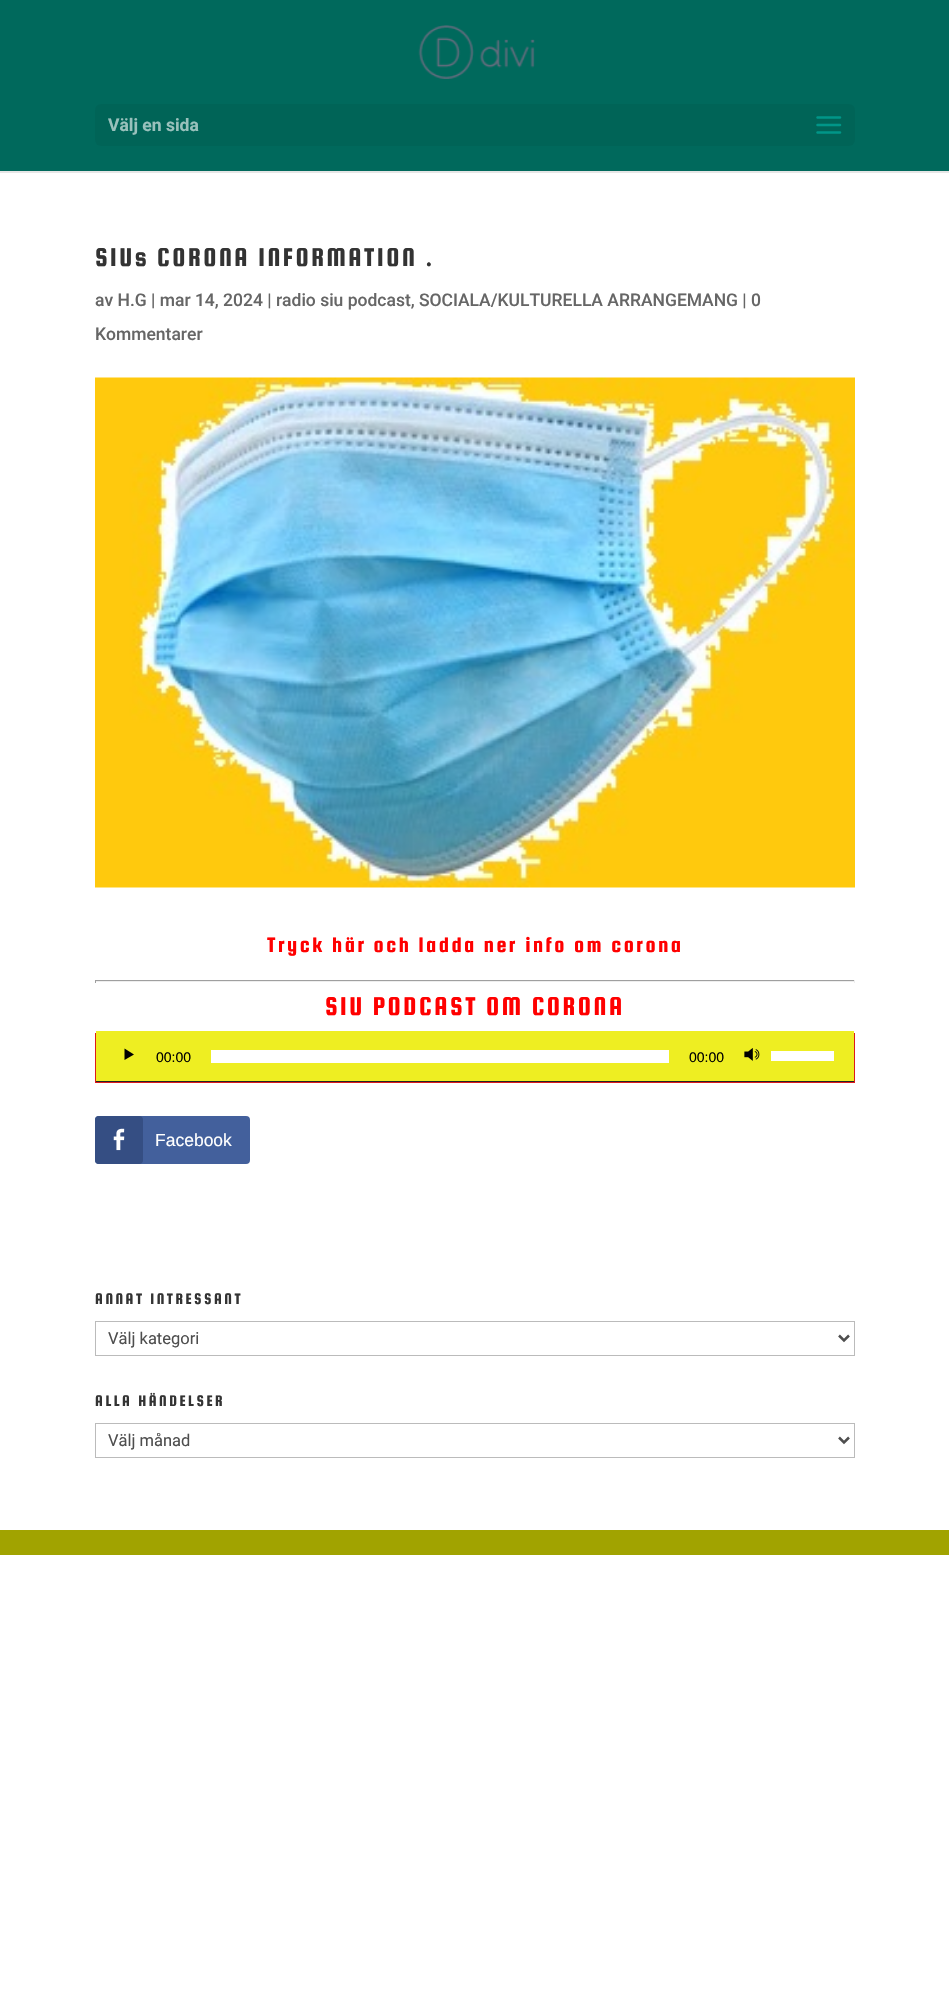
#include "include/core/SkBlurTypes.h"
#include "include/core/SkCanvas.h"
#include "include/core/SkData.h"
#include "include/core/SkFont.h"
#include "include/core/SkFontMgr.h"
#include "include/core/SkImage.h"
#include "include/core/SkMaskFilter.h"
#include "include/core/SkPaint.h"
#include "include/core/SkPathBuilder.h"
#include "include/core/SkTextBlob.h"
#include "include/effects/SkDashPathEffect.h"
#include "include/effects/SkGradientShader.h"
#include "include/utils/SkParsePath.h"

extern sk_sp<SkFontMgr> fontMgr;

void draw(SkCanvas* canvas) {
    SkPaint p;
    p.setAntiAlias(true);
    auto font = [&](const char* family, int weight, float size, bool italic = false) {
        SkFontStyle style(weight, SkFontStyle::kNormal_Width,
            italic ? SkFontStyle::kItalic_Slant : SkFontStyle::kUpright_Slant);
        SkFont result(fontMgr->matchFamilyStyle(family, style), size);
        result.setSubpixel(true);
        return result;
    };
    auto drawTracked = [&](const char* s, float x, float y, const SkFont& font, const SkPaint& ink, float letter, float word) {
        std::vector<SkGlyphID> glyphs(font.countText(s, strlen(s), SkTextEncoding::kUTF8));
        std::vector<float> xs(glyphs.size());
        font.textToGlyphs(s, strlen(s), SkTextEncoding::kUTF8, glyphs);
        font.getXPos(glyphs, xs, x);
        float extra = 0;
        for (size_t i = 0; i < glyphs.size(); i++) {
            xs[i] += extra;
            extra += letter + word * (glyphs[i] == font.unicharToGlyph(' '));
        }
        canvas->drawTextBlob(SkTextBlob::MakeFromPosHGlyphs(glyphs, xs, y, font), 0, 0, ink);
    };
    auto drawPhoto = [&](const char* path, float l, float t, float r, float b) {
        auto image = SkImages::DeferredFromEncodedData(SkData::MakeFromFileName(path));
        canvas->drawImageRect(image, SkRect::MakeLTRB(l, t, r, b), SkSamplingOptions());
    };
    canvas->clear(0xFFFFFFFF);
    p.setColor(0xFFE6E6E6);
    canvas->drawRect(SkRect::MakeLTRB(0, 171, 949, 173), p);
    p.setColor(0xFF00695C);
    canvas->drawRect(SkRect::MakeLTRB(0, 0, 949, 171), p);
    drawPhoto("media/1.png", 418, 25, 535, 79);
    p.setColor(0xFF006457);
    canvas->drawRoundRect(SkRect::MakeLTRB(95, 104, 855, 146), 6, 6, p);
    auto font1 = font("Roboto", 700, 17.5f);
    p.setColor(0xFF99C1BC);
    canvas->drawString("Välj en sida", 108, 131, font1, p);
    drawPhoto("media/2.png", 816, 116, 842, 134);
    auto font2 = font("Squada One", 400, 27.5f);
    p.setColor(0xFF333333);
    drawTracked("SIUs CORONA INFORMATION .", 95, 266, font2, p, 2.5f, 0);
    auto font3 = font("Roboto", 500, 17.5f);
    p.setColor(0xFF666666);
    canvas->drawString("av H.G | mar 14, 2024 | radio siu podcast, SOCIALA/KULTURELLA ARRANGEMANG | 0", 95, 306, font3, p);
    canvas->drawString("Kommentarer", 95, 340, font3, p);
    drawPhoto("media/3.png", 95, 377, 855, 888);
    auto font4 = font("Squada One", 400, 22.5f);
    p.setColor(0xFFFF0000);
    drawTracked("Tryck här och ladda ner info om corona", 267, 952, font4, p, 2.5f, 0);
    {
        const struct { float l, t, r, b; SkColor color; } items[] = {
            {95, 980, 855, 981, 0xFF9F9F9F},
            {854, 980, 855, 983, 0xFFEEEEEE},
            {95, 981, 855, 982, 0xFFEEEEEE},
            {95, 980, 96, 983, 0xFF9F9F9F},
        };
        for (auto [l, t, r, b, color] : items) {
            p.setColor(color);
            canvas->drawRect(SkRect::MakeLTRB(l, t, r, b), p);
        }
    }
    p.setColor(0xFFFF0000);
    drawTracked("SIU PODCAST OM CORONA", 325, 1015, font2, p, 2.5f, 0);
    p.setColor(0xFF222222);
    canvas->drawRect(SkRect::MakeLTRB(96, 1081, 854, 1082), p);
    p.setStyle(SkPaint::kStroke_Style);
    p.setStrokeWidth(1);
    p.setColor(0xFFDD1A1A);
    canvas->drawRect(SkRect::MakeLTRB(95.5f, 1033.5f, 854.5f, 1082.5f), p);
    p.setStyle(SkPaint::kFill_Style);
    p.setColor(0xFFEEEE22);
    canvas->drawRect(SkRect::MakeLTRB(96, 1031, 854, 1081), p);
    p.setColor(0xFF000000);
    canvas->drawPath(SkPathBuilder().moveTo(124.5f, 1048.5f).lineTo(134, 1054.5f).lineTo(124.5f, 1060).close().detach(), p);
    auto font5 = font("Liberation Sans", 400, 14);
    canvas->drawString("00:00", 156, 1062, font5, p);
    p.setColor(0xFFFFFFFF);
    canvas->drawRect(SkRect::MakeLTRB(211, 1050, 669, 1063), p);
    p.setColor(0xFF000000);
    canvas->drawString("00:00", 689, 1062, font5, p);
    drawPhoto("media/4.png", 744, 1048, 760, 1061);
    p.setColor(0xFFFFFFFF);
    canvas->drawRect(SkRect::MakeLTRB(771, 1051, 834, 1061), p);
    p.setColor(0xFF43609C);
    canvas->drawRoundRect(SkRect::MakeLTRB(95, 1116, 250, 1164), 4, 4, p);
    p.setColor(0xFF354E83);
    canvas->drawRoundRect(SkRect::MakeLTRB(95, 1116, 143, 1164), 4, 4, p);
    drawPhoto("media/5.png", 113, 1128, 125, 1151);
    auto font6 = font("Liberation Sans", 400, 17.5f);
    p.setColor(0xFFFFFFFF);
    canvas->drawString("Facebook", 155, 1146, font6, p);
    auto font7 = font("Squada One", 400, 16.25f);
    p.setColor(0xFF333333);
    drawTracked("ANNAT INTRESSANT", 95, 1304, font7, p, 2.5f, 0);
    p.setStyle(SkPaint::kStroke_Style);
    p.setColor(0xFFBBBBBB);
    canvas->drawRect(SkRect::MakeLTRB(95.5f, 1321.5f, 854.5f, 1355.5f), p);
    p.setStrokeWidth(2.5f);
    p.setColor(0xFF4E4E4E);
    canvas->drawPath(SkPathBuilder().moveTo(839, 1335.5f).lineTo(844, 1340.5f).lineTo(849, 1335.5f).detach(), p);
    auto font8 = font("Roboto", 400, 16.5f);
    p.setStyle(SkPaint::kFill_Style);
    canvas->drawString("Välj kategori", 108, 1344, font8, p);
    p.setColor(0xFF333333);
    drawTracked("ALLA HÄNDELSER", 95, 1406, font7, p, 2.5f, 0);
    p.setStyle(SkPaint::kStroke_Style);
    p.setStrokeWidth(1);
    p.setColor(0xFFBBBBBB);
    canvas->drawRect(SkRect::MakeLTRB(95.5f, 1423.5f, 854.5f, 1457.5f), p);
    p.setStrokeWidth(2.5f);
    p.setColor(0xFF4E4E4E);
    canvas->drawPath(SkPathBuilder().moveTo(839, 1437.5f).lineTo(844, 1442.5f).lineTo(849, 1437.5f).detach(), p);
    p.setStyle(SkPaint::kFill_Style);
    canvas->drawString("Välj månad", 108, 1446, font8, p);
    p.setColor(0xFFA1A300);
    canvas->drawRect(SkRect::MakeLTRB(0, 1530, 949, 1555), p);
}
